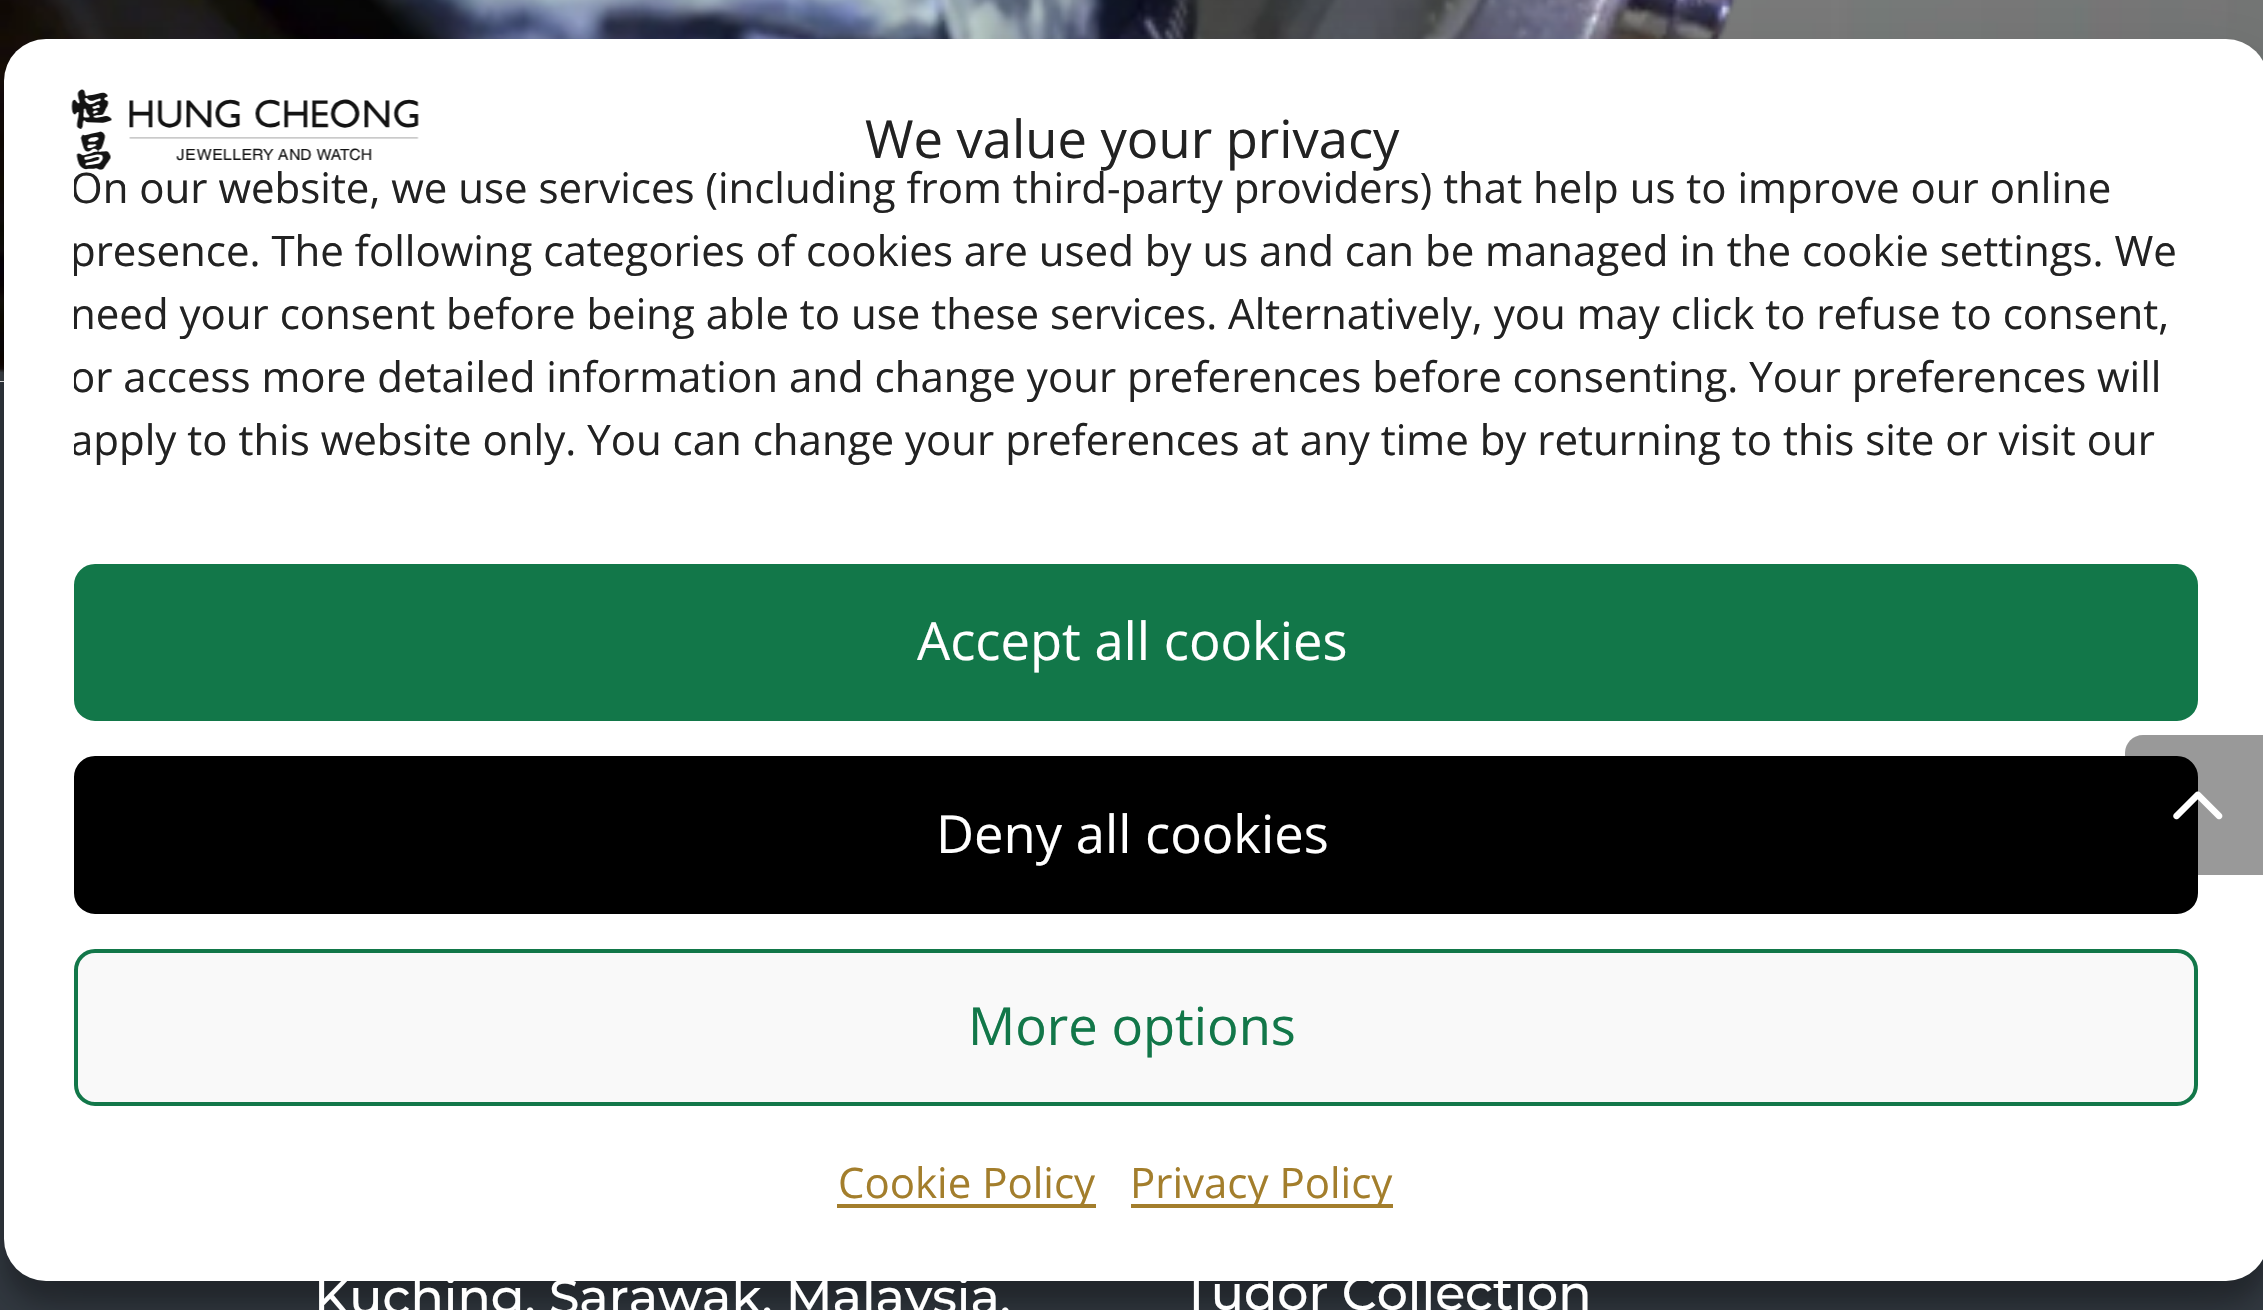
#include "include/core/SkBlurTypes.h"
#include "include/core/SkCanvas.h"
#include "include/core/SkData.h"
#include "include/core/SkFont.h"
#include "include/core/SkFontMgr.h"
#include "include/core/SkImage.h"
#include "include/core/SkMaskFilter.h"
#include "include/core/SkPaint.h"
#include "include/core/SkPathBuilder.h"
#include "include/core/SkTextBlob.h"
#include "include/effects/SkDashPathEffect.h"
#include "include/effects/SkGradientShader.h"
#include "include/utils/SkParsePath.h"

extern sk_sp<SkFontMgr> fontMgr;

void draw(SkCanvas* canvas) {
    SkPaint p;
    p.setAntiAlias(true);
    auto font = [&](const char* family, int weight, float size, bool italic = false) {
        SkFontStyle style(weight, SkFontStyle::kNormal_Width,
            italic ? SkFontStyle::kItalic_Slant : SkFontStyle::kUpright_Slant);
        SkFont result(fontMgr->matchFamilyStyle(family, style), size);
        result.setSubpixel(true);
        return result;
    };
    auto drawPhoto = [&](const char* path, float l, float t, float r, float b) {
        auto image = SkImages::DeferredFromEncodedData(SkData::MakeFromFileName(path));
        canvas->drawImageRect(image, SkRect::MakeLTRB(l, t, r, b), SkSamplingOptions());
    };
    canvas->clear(0xFFFFFFFF);
    drawPhoto("media/3.png", 0, 0, 2263, 381);
    drawPhoto("media/4.png", 0, 0, 1737, 375);
    p.setColor(0xFF333A42);
    canvas->drawRect(SkRect::MakeLTRB(0, 382, 2263, 1310), p);
    canvas->save();
    canvas->clipPath(SkPathBuilder(SkPathFillType::kEvenOdd).moveTo(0, 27).lineTo(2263, 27).lineTo(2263, 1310).lineTo(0, 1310).close().moveTo(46, 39).lineTo(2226, 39).cubicTo(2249, 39, 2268, 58, 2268, 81).lineTo(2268, 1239).cubicTo(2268, 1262, 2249, 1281, 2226, 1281).lineTo(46, 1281).cubicTo(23, 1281, 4, 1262, 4, 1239).lineTo(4, 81).cubicTo(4, 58, 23, 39, 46, 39).close().detach(), true);
    p.setColor(0x3B000000);
    p.setMaskFilter(SkMaskFilter::MakeBlur(kNormal_SkBlurStyle, 10.5f));
    canvas->drawRoundRect(SkRect::MakeLTRB(4, 60, 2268, 1302), 42, 42, p);
    p.setMaskFilter(nullptr);
    canvas->restore();
    canvas->save();
    canvas->clipPath(SkPathBuilder(SkPathFillType::kEvenOdd).moveTo(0, 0).lineTo(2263, 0).lineTo(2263, 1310).lineTo(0, 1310).close().moveTo(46, 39).lineTo(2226, 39).cubicTo(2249, 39, 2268, 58, 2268, 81).lineTo(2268, 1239).cubicTo(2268, 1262, 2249, 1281, 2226, 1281).lineTo(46, 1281).cubicTo(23, 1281, 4, 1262, 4, 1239).lineTo(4, 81).cubicTo(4, 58, 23, 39, 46, 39).close().detach(), true);
    p.setColor(0x30000000);
    p.setMaskFilter(SkMaskFilter::MakeBlur(kNormal_SkBlurStyle, 35));
    canvas->drawRoundRect(SkRect::MakeLTRB(4, 74, 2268, 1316), 42, 42, p);
    p.setMaskFilter(nullptr);
    canvas->restore();
    p.setColor(0xFFFFFFFF);
    canvas->drawRoundRect(SkRect::MakeLTRB(4, 39, 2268, 1281), 42, 42, p);
    drawPhoto("media/1.png", 71, 89, 419, 170);
    auto font1 = font("Open Sans", 400, 52.5f);
    p.setColor(0xFF222222);
    canvas->drawString("We value your privacy", 865, 158, font1, p);
    canvas->save();
    canvas->clipRect(SkRect::MakeLTRB(74, 161, 2198, 494));
    auto font2 = font("Open Sans", 400, 42);
    {
        const struct { const char* s; float x, y; } items[] = {
            {"On our website, we use services (including from third-party providers) that help us to improve our online", 70, 203},
            {"presence. The following categories of cookies are used by us and can be managed in the cookie settings. We", 70, 266},
            {"need your consent before being able to use these services. Alternatively, you may click to refuse to consent,", 70, 329},
            {"or access more detailed information and change your preferences before consenting. Your preferences will", 70, 392},
            {"apply to this website only. You can change your preferences at any time by returning to this site or visit our", 70, 455},
        };
        for (auto [s, x, y] : items) {
            canvas->drawString(s, x, y, font2, p);
        }
    }
    canvas->restore();
    p.setColor(0xFF127749);
    canvas->drawRoundRect(SkRect::MakeLTRB(76, 566, 2196, 719), 19, 19, p);
    p.setStyle(SkPaint::kStroke_Style);
    p.setStrokeWidth(4);
    canvas->drawRoundRect(SkRect::MakeLTRB(76, 566, 2196, 719), 19, 19, p);
    p.setStyle(SkPaint::kFill_Style);
    p.setColor(0xFFFFFFFF);
    canvas->drawString("Accept all cookies", 917, 660, font1, p);
    p.setColor(0xFF000000);
    canvas->drawRoundRect(SkRect::MakeLTRB(76, 758, 2196, 912), 19, 19, p);
    p.setStyle(SkPaint::kStroke_Style);
    canvas->drawRoundRect(SkRect::MakeLTRB(76, 758, 2196, 912), 19, 19, p);
    p.setStyle(SkPaint::kFill_Style);
    p.setColor(0xFFFFFFFF);
    canvas->drawString("Deny all cookies", 936, 853, font1, p);
    p.setColor(0xFFF9F9F9);
    canvas->drawRoundRect(SkRect::MakeLTRB(76, 951, 2196, 1104), 19, 19, p);
    p.setStyle(SkPaint::kStroke_Style);
    p.setColor(0xFF127749);
    canvas->drawRoundRect(SkRect::MakeLTRB(76, 951, 2196, 1104), 19, 19, p);
    p.setStyle(SkPaint::kFill_Style);
    canvas->drawString("More options", 968, 1045, font1, p);
    p.setColor(0xFFA37E2C);
    canvas->drawRect(SkRect::MakeLTRB(837, 1204, 1096, 1208), p);
    canvas->drawString("Cookie Policy", 838, 1198, font2, p);
    canvas->drawRect(SkRect::MakeLTRB(1131, 1204, 1393, 1208), p);
    canvas->drawString("Privacy Policy", 1130, 1198, font2, p);
    p.setColor(0x66000000);
    canvas->drawPath(SkPathBuilder().moveTo(2143, 735).lineTo(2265, 735).lineTo(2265, 875).lineTo(2143, 875).cubicTo(2133, 875, 2125, 867, 2125, 857).lineTo(2125, 753).cubicTo(2125, 743, 2133, 735, 2143, 735).close().detach(), p);
    drawPhoto("media/2.png", 2173, 791, 2223, 820);
    auto font3 = font("Montserrat", 100, 49);
    p.setColor(0xFFFFFFFF);
    canvas->drawString("Kuching, Sarawak, Malaysia.", 314, 1314, font3, p);
    canvas->drawString("Tudor Collection", 1182, 1310, font3, p);
}
